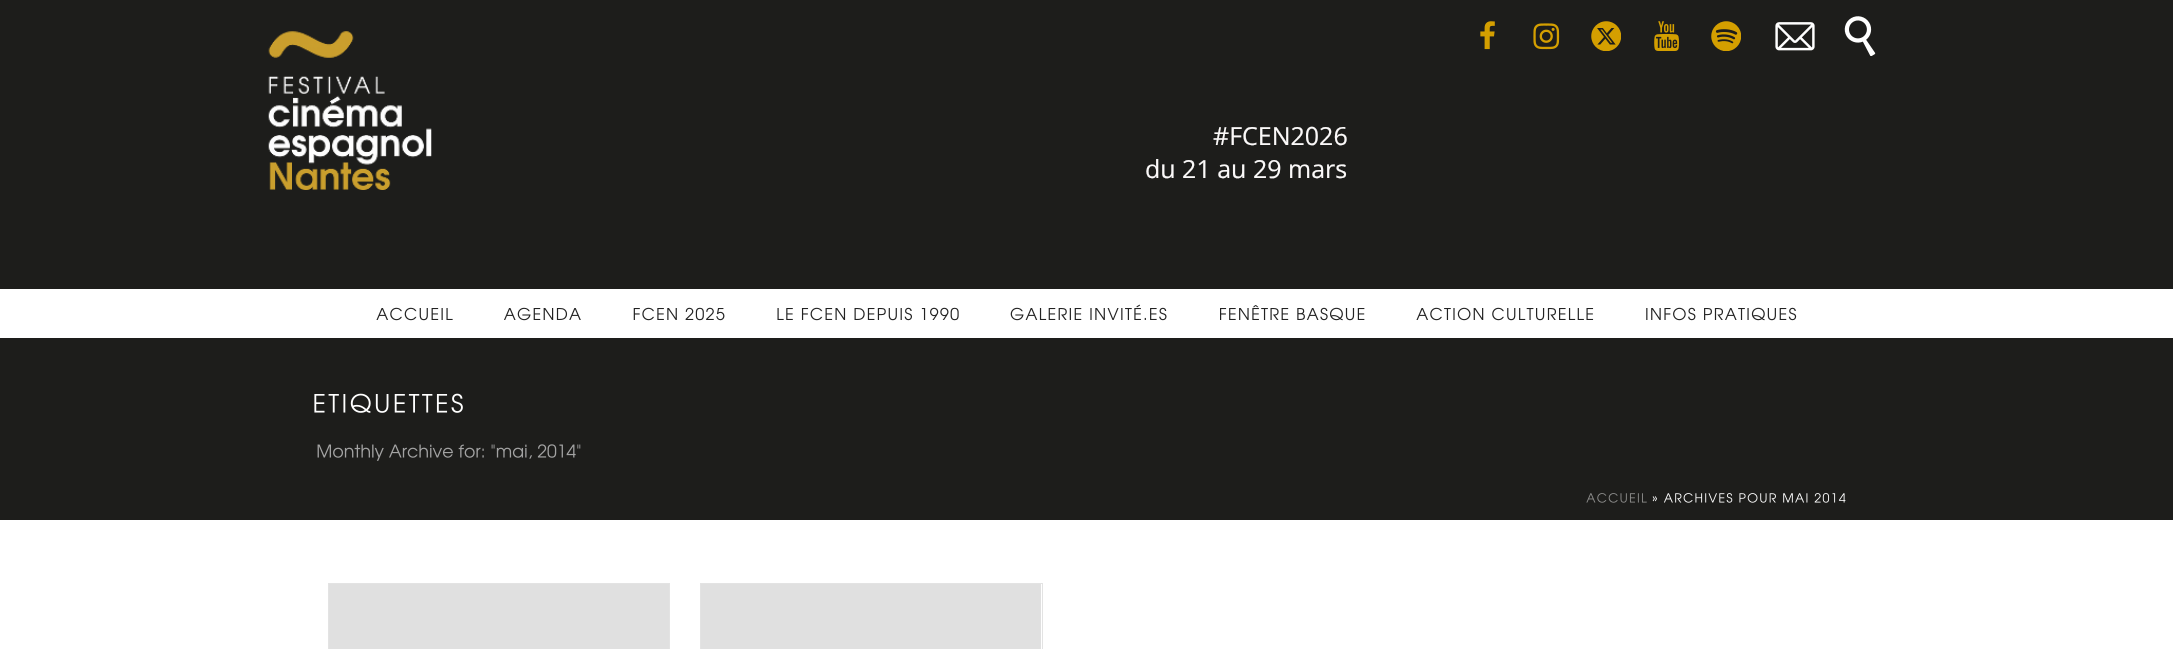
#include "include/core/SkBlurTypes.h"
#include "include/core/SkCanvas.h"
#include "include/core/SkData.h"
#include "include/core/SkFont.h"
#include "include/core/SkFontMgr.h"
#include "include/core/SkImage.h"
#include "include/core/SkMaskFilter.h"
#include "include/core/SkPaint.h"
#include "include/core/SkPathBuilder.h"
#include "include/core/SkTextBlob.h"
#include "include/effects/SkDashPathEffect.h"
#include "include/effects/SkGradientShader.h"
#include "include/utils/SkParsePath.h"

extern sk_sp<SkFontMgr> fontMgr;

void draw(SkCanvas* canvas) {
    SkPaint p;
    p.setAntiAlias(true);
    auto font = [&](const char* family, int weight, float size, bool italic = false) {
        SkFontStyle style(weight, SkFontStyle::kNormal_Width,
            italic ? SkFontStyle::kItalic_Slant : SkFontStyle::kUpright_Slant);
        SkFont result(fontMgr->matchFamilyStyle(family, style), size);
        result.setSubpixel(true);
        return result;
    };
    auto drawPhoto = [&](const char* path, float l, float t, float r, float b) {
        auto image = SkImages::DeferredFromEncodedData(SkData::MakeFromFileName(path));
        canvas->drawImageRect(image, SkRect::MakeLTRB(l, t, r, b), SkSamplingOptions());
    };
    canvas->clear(0xFFFFFFFF);
    p.setColor(0xFF1D1D1B);
    canvas->drawRect(SkRect::MakeLTRB(0, 0, 2173, 289), p);
    drawPhoto("media/1.png", 268, 31, 432, 190);
    auto font1 = font("Open Sans", 400, 25);
    p.setColor(0xFFFBF9F9);
    canvas->drawString("#FCEN2026", 1213, 145, font1, p);
    canvas->drawString("du 21 au 29 mars", 1145, 178, font1, p);
    drawPhoto("media/2.png", 1480, 21, 1495, 50);
    drawPhoto("media/3.png", 1533, 23, 1560, 50);
    drawPhoto("media/4.png", 1591, 21, 1621, 51);
    drawPhoto("media/5.png", 1654, 21, 1679, 51);
    drawPhoto("media/6.png", 1711, 21, 1741, 51);
    drawPhoto("media/7.png", 1775, 22, 1815, 51);
    drawPhoto("media/8.png", 1844, 16, 1876, 56);
    drawPhoto("media/9.png", 376, 307, 453, 321);
    drawPhoto("media/10.png", 504, 307, 581, 321);
    drawPhoto("media/11.png", 633, 307, 725, 321);
    drawPhoto("media/12.png", 777, 307, 959, 321);
    drawPhoto("media/13.png", 1010, 304, 1167, 321);
    drawPhoto("media/14.png", 1220, 305, 1365, 321);
    drawPhoto("media/15.png", 1416, 307, 1594, 321);
    drawPhoto("media/16.png", 1646, 307, 1797, 321);
    p.setColor(0xFF1D1D1B);
    canvas->drawRect(SkRect::MakeLTRB(0, 338, 2173, 520), p);
    drawPhoto("media/17.png", 314, 393, 463, 413);
    drawPhoto("media/18.png", 317, 444, 581, 461);
    drawPhoto("media/19.png", 1586, 493, 1647, 503);
    drawPhoto("media/20.png", 1652, 496, 1657, 502);
    drawPhoto("media/21.png", 1664, 493, 1846, 503);
    p.setStyle(SkPaint::kStroke_Style);
    p.setStrokeWidth(1);
    p.setColor(0xFFE3E3E3);
    canvas->drawRect(SkRect::MakeLTRB(328.5f, 583.5f, 669.5f, 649.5f), p);
    p.setStyle(SkPaint::kFill_Style);
    p.setColor(0xFFE0E0E0);
    canvas->drawRect(SkRect::MakeLTRB(329, 584, 669, 649), p);
    p.setStyle(SkPaint::kStroke_Style);
    p.setColor(0xFFE3E3E3);
    canvas->drawRect(SkRect::MakeLTRB(700.5f, 583.5f, 1042.5f, 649.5f), p);
    p.setStyle(SkPaint::kFill_Style);
    p.setColor(0xFFE0E0E0);
    canvas->drawRect(SkRect::MakeLTRB(701, 584, 1041, 649), p);
}
